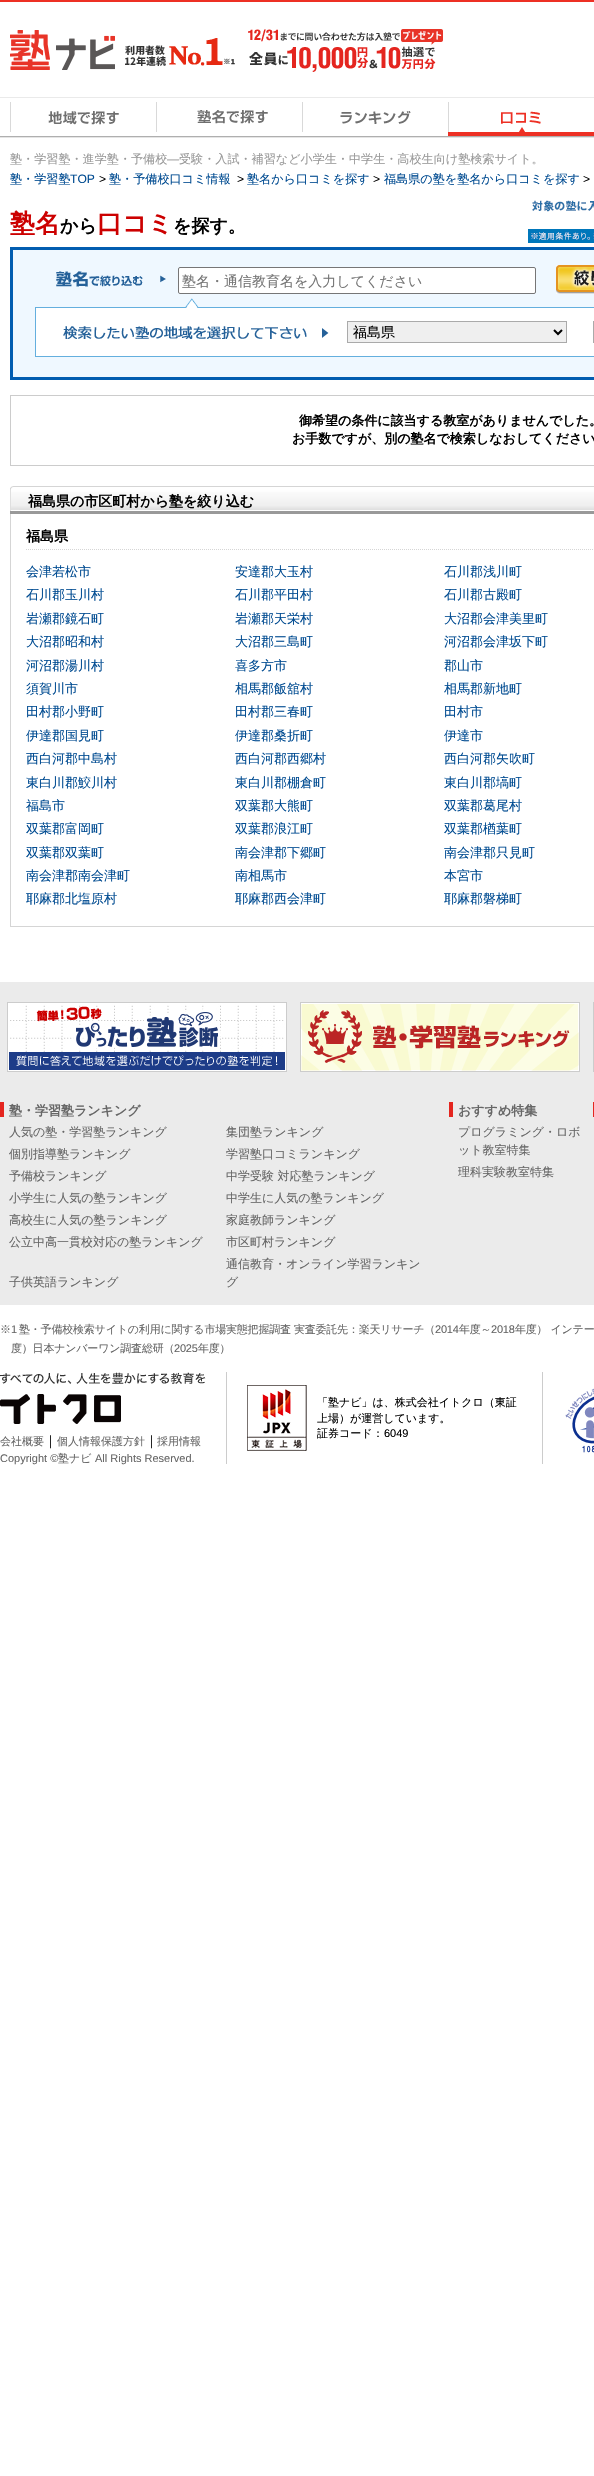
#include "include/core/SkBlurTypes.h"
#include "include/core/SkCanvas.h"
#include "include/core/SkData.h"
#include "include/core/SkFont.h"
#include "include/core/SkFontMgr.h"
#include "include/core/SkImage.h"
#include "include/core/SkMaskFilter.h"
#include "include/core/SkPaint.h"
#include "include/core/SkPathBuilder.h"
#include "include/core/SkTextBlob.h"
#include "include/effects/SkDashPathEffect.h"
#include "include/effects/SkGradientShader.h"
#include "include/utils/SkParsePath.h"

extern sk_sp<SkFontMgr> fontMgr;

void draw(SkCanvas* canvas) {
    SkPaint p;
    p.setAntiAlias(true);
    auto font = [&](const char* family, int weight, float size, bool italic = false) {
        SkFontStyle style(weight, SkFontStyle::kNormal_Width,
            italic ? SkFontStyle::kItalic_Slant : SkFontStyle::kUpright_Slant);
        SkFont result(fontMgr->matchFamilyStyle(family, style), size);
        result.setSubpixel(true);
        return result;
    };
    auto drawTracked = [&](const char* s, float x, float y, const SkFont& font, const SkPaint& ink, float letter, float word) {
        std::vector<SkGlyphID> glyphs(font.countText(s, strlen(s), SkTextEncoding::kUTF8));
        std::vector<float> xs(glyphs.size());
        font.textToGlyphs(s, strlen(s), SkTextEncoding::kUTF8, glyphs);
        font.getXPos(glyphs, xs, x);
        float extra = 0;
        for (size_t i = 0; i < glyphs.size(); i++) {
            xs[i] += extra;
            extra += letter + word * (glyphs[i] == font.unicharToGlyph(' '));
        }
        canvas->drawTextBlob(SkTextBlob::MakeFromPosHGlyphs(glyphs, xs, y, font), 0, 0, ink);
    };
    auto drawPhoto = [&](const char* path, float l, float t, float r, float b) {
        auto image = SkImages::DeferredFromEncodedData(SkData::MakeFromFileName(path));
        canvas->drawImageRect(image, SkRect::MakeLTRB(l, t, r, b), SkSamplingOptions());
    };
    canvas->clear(0xFFFFFFFF);
    p.setColor(0xFFED3024);
    canvas->drawRect(SkRect::MakeLTRB(0, 0, 594, 2), p);
    drawPhoto("media/1.png", 10, 30, 115, 70);
    drawPhoto("media/2.png", 125, 38, 235, 66);
    drawPhoto("media/3.png", 248, 29, 443, 72);
    canvas->save();
    canvas->clipRect(SkRect::MakeLTRB(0, 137, 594, 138));
    p.setColor(0x1A000000);
    p.setMaskFilter(SkMaskFilter::MakeBlur(kNormal_SkBlurStyle, 0.5f));
    canvas->drawRect(SkRect::MakeLTRB(0, 98, 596, 138), p);
    p.setMaskFilter(nullptr);
    canvas->restore();
    p.setColor(0xFFEAEAEA);
    canvas->drawRect(SkRect::MakeLTRB(0, 97, 594, 98), p);
    p.setColor(0xFFAFAFAF);
    canvas->drawRect(SkRect::MakeLTRB(0, 136, 594, 137), p);
    drawPhoto("media/4.png", 10, 102, 119, 132);
    drawPhoto("media/5.png", 156, 102, 268, 132);
    drawPhoto("media/6.png", 302, 102, 411, 132);
    drawPhoto("media/7.png", 448, 102, 594, 136);
    auto font1 = font("WenQuanYi Zen Hei", 500, 12.1f);
    p.setColor(0xFF999999);
    canvas->drawString("塾・学習塾・進学塾・予備校", 10, 163, font1, p);
    auto font2 = font("Liberation Sans", 400, 12.1f);
    canvas->drawString("―", 167, 163, font2, p);
    canvas->drawString("受験・入試・補習など小学生・中学生・高校生向け塾検索サイト。", 179, 163, font1, p);
    p.setColor(0xFF004B91);
    canvas->drawString("塾・学習塾", 10, 183, font1, p);
    canvas->drawString("TOP", 70, 183, font2, p);
    p.setColor(0xFF000000);
    canvas->drawString(">", 99, 183, font2, p);
    p.setColor(0xFF004B91);
    canvas->drawString("塾・予備校口コミ情報", 109, 183, font1, p);
    p.setColor(0xFF000000);
    canvas->drawString(">", 237, 183, font2, p);
    p.setColor(0xFF004B91);
    canvas->drawString("塾名から口コミを探す", 247, 183, font1, p);
    p.setColor(0xFF000000);
    canvas->drawString(">", 373, 183, font2, p);
    p.setColor(0xFF004B91);
    canvas->drawString("福島県の塾を塾名から口コミを探す", 384, 183, font1, p);
    p.setColor(0xFF000000);
    canvas->drawString(">", 583, 183, font2, p);
    auto font3 = font("WenQuanYi Zen Hei", 700, 25);
    p.setColor(0xFFCC0000);
    canvas->drawString("塾名", 10, 232, font3, p);
    auto font4 = font("WenQuanYi Zen Hei", 700, 18);
    p.setColor(0xFF000000);
    canvas->drawString("から", 60, 232, font4, p);
    p.setColor(0xFFCC0000);
    canvas->drawString("口コミ", 97, 232, font3, p);
    p.setColor(0xFF000000);
    canvas->drawString("を探す。", 173, 232, font4, p);
    p.setColor(0xFFEFF8FF);
    canvas->drawRect(SkRect::MakeLTRB(11.5f, 248.5f, 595.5f, 378.5f), p);
    p.setStyle(SkPaint::kStroke_Style);
    p.setStrokeWidth(3);
    p.setColor(0xFF025DB0);
    canvas->drawRect(SkRect::MakeLTRB(11.5f, 248.5f, 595.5f, 378.5f), p);
    drawPhoto("media/8.png", 56, 271, 166, 287);
    p.setStyle(SkPaint::kFill_Style);
    p.setColor(0xFFFFFFFF);
    canvas->drawRoundRect(SkRect::MakeLTRB(178.5f, 267.5f, 535.5f, 293.5f), 1.5f, 1.5f, p);
    p.setStyle(SkPaint::kStroke_Style);
    p.setStrokeWidth(1);
    p.setColor(0xFF767676);
    canvas->drawRoundRect(SkRect::MakeLTRB(178.5f, 267.5f, 535.5f, 293.5f), 1.5f, 1.5f, p);
    auto font5 = font("WenQuanYi Zen Hei", 500, 14);
    p.setStyle(SkPaint::kFill_Style);
    p.setColor(0xFF757575);
    canvas->drawString("塾名・通信教育名を入力してください", 182, 286, font5, p);
    drawPhoto("media/9.png", 556, 265, 594, 294);
    p.setColor(0xFFFFFFFF);
    canvas->drawRect(SkRect::MakeLTRB(35.5f, 307.5f, 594.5f, 356.5f), p);
    p.setStyle(SkPaint::kStroke_Style);
    p.setColor(0xFF64AFDE);
    canvas->drawRect(SkRect::MakeLTRB(35.5f, 307.5f, 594.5f, 356.5f), p);
    drawPhoto("media/10.png", 185, 298, 199, 308);
    drawPhoto("media/11.png", 63, 326, 329, 339);
    p.setStyle(SkPaint::kFill_Style);
    p.setColor(0xFFEFEFEF);
    canvas->drawRect(SkRect::MakeLTRB(347.5f, 321.5f, 566.5f, 342.5f), p);
    p.setStyle(SkPaint::kStroke_Style);
    p.setColor(0xFFAAAAAA);
    canvas->drawRect(SkRect::MakeLTRB(347.5f, 321.5f, 566.5f, 342.5f), p);
    p.setStrokeWidth(2);
    p.setColor(0xFF000000);
    canvas->drawPath(SkPathBuilder().moveTo(554, 330).lineTo(558, 334).lineTo(562, 330).detach(), p);
    p.setStyle(SkPaint::kFill_Style);
    canvas->drawString("福島県", 353, 337, font5, p);
    p.setStyle(SkPaint::kStroke_Style);
    p.setStrokeWidth(1);
    p.setColor(0xFFAAAAAA);
    canvas->drawRect(SkRect::MakeLTRB(593.5f, 321.5f, 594.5f, 342.5f), p);
    drawPhoto("media/12.png", 528, 200, 594, 243);
    p.setColor(0xFFCCCCCC);
    canvas->drawRect(SkRect::MakeLTRB(10.5f, 395.5f, 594.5f, 465.5f), p);
    auto font6 = font("WenQuanYi Zen Hei", 700, 13);
    p.setStyle(SkPaint::kFill_Style);
    p.setColor(0xFF000000);
    canvas->drawString("御希望の条件に該当する教室がありませんでした。", 299, 425, font6, p);
    canvas->drawString("お手数ですが、別の塾名で検索しなおしてください", 292, 443, font6, p);
    drawPhoto("media/13.png", 10, 486, 594, 514);
    auto font7 = font("WenQuanYi Zen Hei", 700, 14);
    canvas->drawString("福島県の市区町村から塾を絞り込む", 28, 506, font7, p);
    p.setColor(0xFFD5D5D5);
    canvas->drawRect(SkRect::MakeLTRB(10, 926, 594, 927), p);
    canvas->drawRect(SkRect::MakeLTRB(10, 514, 11, 927), p);
    p.setStyle(SkPaint::kStroke_Style);
    p.setPathEffect(SkDashPathEffect::Make({{1, 1}}, 0));
    canvas->drawPath(SkPathBuilder().moveTo(26, 549.5f).lineTo(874, 549.5f).detach(), p);
    p.setPathEffect(nullptr);
    p.setStyle(SkPaint::kFill_Style);
    p.setColor(0xFF000000);
    canvas->drawString("福島県", 26, 541, font7, p);
    auto font8 = font("WenQuanYi Zen Hei", 500, 13);
    p.setColor(0xFF004B91);
    {
        const struct { const char* s; float x, y; } items[] = {
            {"会津若松市", 26, 576},
            {"安達郡大玉村", 235, 576},
            {"石川郡浅川町", 444, 576},
            {"石川郡玉川村", 26, 599},
            {"石川郡平田村", 235, 599},
            {"石川郡古殿町", 444, 599},
            {"岩瀬郡鏡石町", 26, 623},
            {"岩瀬郡天栄村", 235, 623},
            {"大沼郡会津美里町", 444, 623},
            {"大沼郡昭和村", 26, 646},
            {"大沼郡三島町", 235, 646},
            {"河沼郡会津坂下町", 444, 646},
            {"河沼郡湯川村", 26, 670},
            {"喜多方市", 235, 670},
            {"郡山市", 444, 670},
            {"須賀川市", 26, 693},
            {"相馬郡飯舘村", 235, 693},
            {"相馬郡新地町", 444, 693},
            {"田村郡小野町", 26, 716},
            {"田村郡三春町", 235, 716},
            {"田村市", 444, 716},
            {"伊達郡国見町", 26, 740},
            {"伊達郡桑折町", 235, 740},
            {"伊達市", 444, 740},
            {"西白河郡中島村", 26, 763},
            {"西白河郡西郷村", 235, 763},
            {"西白河郡矢吹町", 444, 763},
            {"東白川郡鮫川村", 26, 787},
            {"東白川郡棚倉町", 235, 787},
            {"東白川郡塙町", 444, 787},
            {"福島市", 26, 810},
            {"双葉郡大熊町", 235, 810},
            {"双葉郡葛尾村", 444, 810},
            {"双葉郡富岡町", 26, 833},
            {"双葉郡浪江町", 235, 833},
            {"双葉郡楢葉町", 444, 833},
            {"双葉郡双葉町", 26, 857},
            {"南会津郡下郷町", 235, 857},
            {"南会津郡只見町", 444, 857},
            {"南会津郡南会津町", 26, 880},
            {"南相馬市", 235, 880},
            {"本宮市", 444, 880},
            {"耶麻郡北塩原村", 26, 903},
            {"耶麻郡西会津町", 235, 903},
            {"耶麻郡磐梯町", 444, 903},
        };
        for (auto [s, x, y] : items) {
            canvas->drawString(s, x, y, font8, p);
        }
    }
    p.setColor(0xFFEBEBEB);
    canvas->drawRect(SkRect::MakeLTRB(0, 982, 594, 1305), p);
    drawPhoto("media/14.png", 7, 1002, 287, 1072);
    drawPhoto("media/15.png", 300, 1002, 580, 1072);
    p.setColor(0xFFCCCCCC);
    canvas->drawRect(SkRect::MakeLTRB(593, 1002, 594, 1072), p);
    p.setColor(0xFFE4251F);
    canvas->drawRect(SkRect::MakeLTRB(0, 1102, 4, 1117), p);
    p.setColor(0xFF666666);
    canvas->drawString("塾・学習塾ランキング", 9, 1115, font6, p);
    auto font9 = font("WenQuanYi Zen Hei", 500, 12);
    {
        const struct { const char* s; float x, y; } items[] = {
            {"人気の塾・学習塾ランキング", 9, 1136},
            {"集団塾ランキング", 226, 1136},
            {"個別指導塾ランキング", 9, 1158},
            {"学習塾口コミランキング", 226, 1158},
            {"予備校ランキング", 9, 1180},
            {"中学受験 対応塾ランキング", 226, 1180},
            {"小学生に人気の塾ランキング", 9, 1202},
            {"中学生に人気の塾ランキング", 226, 1202},
            {"高校生に人気の塾ランキング", 9, 1224},
            {"家庭教師ランキング", 226, 1224},
            {"公立中高一貫校対応の塾ランキング", 9, 1246},
            {"市区町村ランキング", 226, 1246},
            {"子供英語ランキング", 9, 1286},
            {"通信教育・オンライン学習ランキン", 226, 1268},
            {"グ", 226, 1286},
        };
        for (auto [s, x, y] : items) {
            canvas->drawString(s, x, y, font9, p);
        }
    }
    p.setColor(0xFFE4251F);
    canvas->drawRect(SkRect::MakeLTRB(449, 1102, 453, 1117), p);
    p.setColor(0xFF666666);
    canvas->drawString("おすすめ特集", 458, 1115, font6, p);
    {
        const struct { const char* s; float x, y; } items[] = {
            {"プログラミング・ロボ", 458, 1136},
            {"ット教室特集", 458, 1154},
            {"理科実験教室特集", 458, 1176},
        };
        for (auto [s, x, y] : items) {
            canvas->drawString(s, x, y, font9, p);
        }
    }
    p.setColor(0xFFE4251F);
    canvas->drawRect(SkRect::MakeLTRB(593, 1102, 594, 1117), p);
    auto font10 = font("WenQuanYi Zen Hei", 500, 11);
    p.setColor(0xFF666666);
    drawTracked("※", 0, 1333, font10, p, -0.2f, 0);
    auto font11 = font("Liberation Sans", 400, 11);
    drawTracked("1", 11, 1333, font11, p, -0.2f, 0);
    drawTracked("塾・予備校検索サイトの利用に関する市場実態把握調査 実査委託先：楽天リサーチ（", 19, 1333, font10, p, -0.2f, 0);
    drawTracked("2014", 435, 1333, font11, p, -0.2f, 0);
    drawTracked("年度～", 459, 1333, font10, p, -0.2f, 0);
    drawTracked("2018", 491, 1333, font11, p, -0.2f, 0);
    drawTracked("年度） インテー", 515, 1333, font10, p, -0.2f, 0);
    drawTracked("度）日本ナンバーワン調査総研（", 11, 1352, font10, p, -0.2f, 0);
    drawTracked("2025", 174, 1352, font11, p, -0.2f, 0);
    drawTracked("年度）", 198, 1352, font10, p, -0.2f, 0);
    p.setColor(0xFFCCCCCC);
    canvas->drawRect(SkRect::MakeLTRB(542, 1372, 543, 1464), p);
    drawPhoto("media/16.png", 247, 1385, 307, 1451);
    p.setColor(0xFF000000);
    {
        const struct { const char* s; float x, y; } items[] = {
            {"「塾ナビ」は、株式会社イトクロ（東証", 317, 1406},
            {"上場）が運営しています。", 317, 1422},
            {"証券コード：", 317, 1437},
        };
        for (auto [s, x, y] : items) {
            canvas->drawString(s, x, y, font10, p);
        }
    }
    canvas->drawString("6049", 384, 1437, font11, p);
    drawPhoto("media/17.png", 565, 1388, 594, 1453);
    p.setColor(0xFFCCCCCC);
    canvas->drawRect(SkRect::MakeLTRB(226, 1372, 227, 1464), p);
    drawPhoto("media/18.png", 0, 1372, 206, 1384);
    drawPhoto("media/19.png", 0, 1394, 121, 1424);
    p.setColor(0xFF666666);
    canvas->drawString("会社概要", 0, 1445, font10, p);
    p.setColor(0xFF000000);
    canvas->drawString("｜", 44, 1445, font8, p);
    p.setColor(0xFF666666);
    canvas->drawString("個人情報保護方針", 57, 1445, font10, p);
    p.setColor(0xFF000000);
    canvas->drawString("｜", 145, 1445, font8, p);
    p.setColor(0xFF666666);
    canvas->drawString("採用情報", 157, 1445, font10, p);
    canvas->drawString("Copyright ©", 0, 1462, font11, p);
    canvas->drawString("塾ナビ", 58, 1462, font10, p);
    canvas->drawString("All Rights Reserved.", 95, 1462, font11, p);
}
